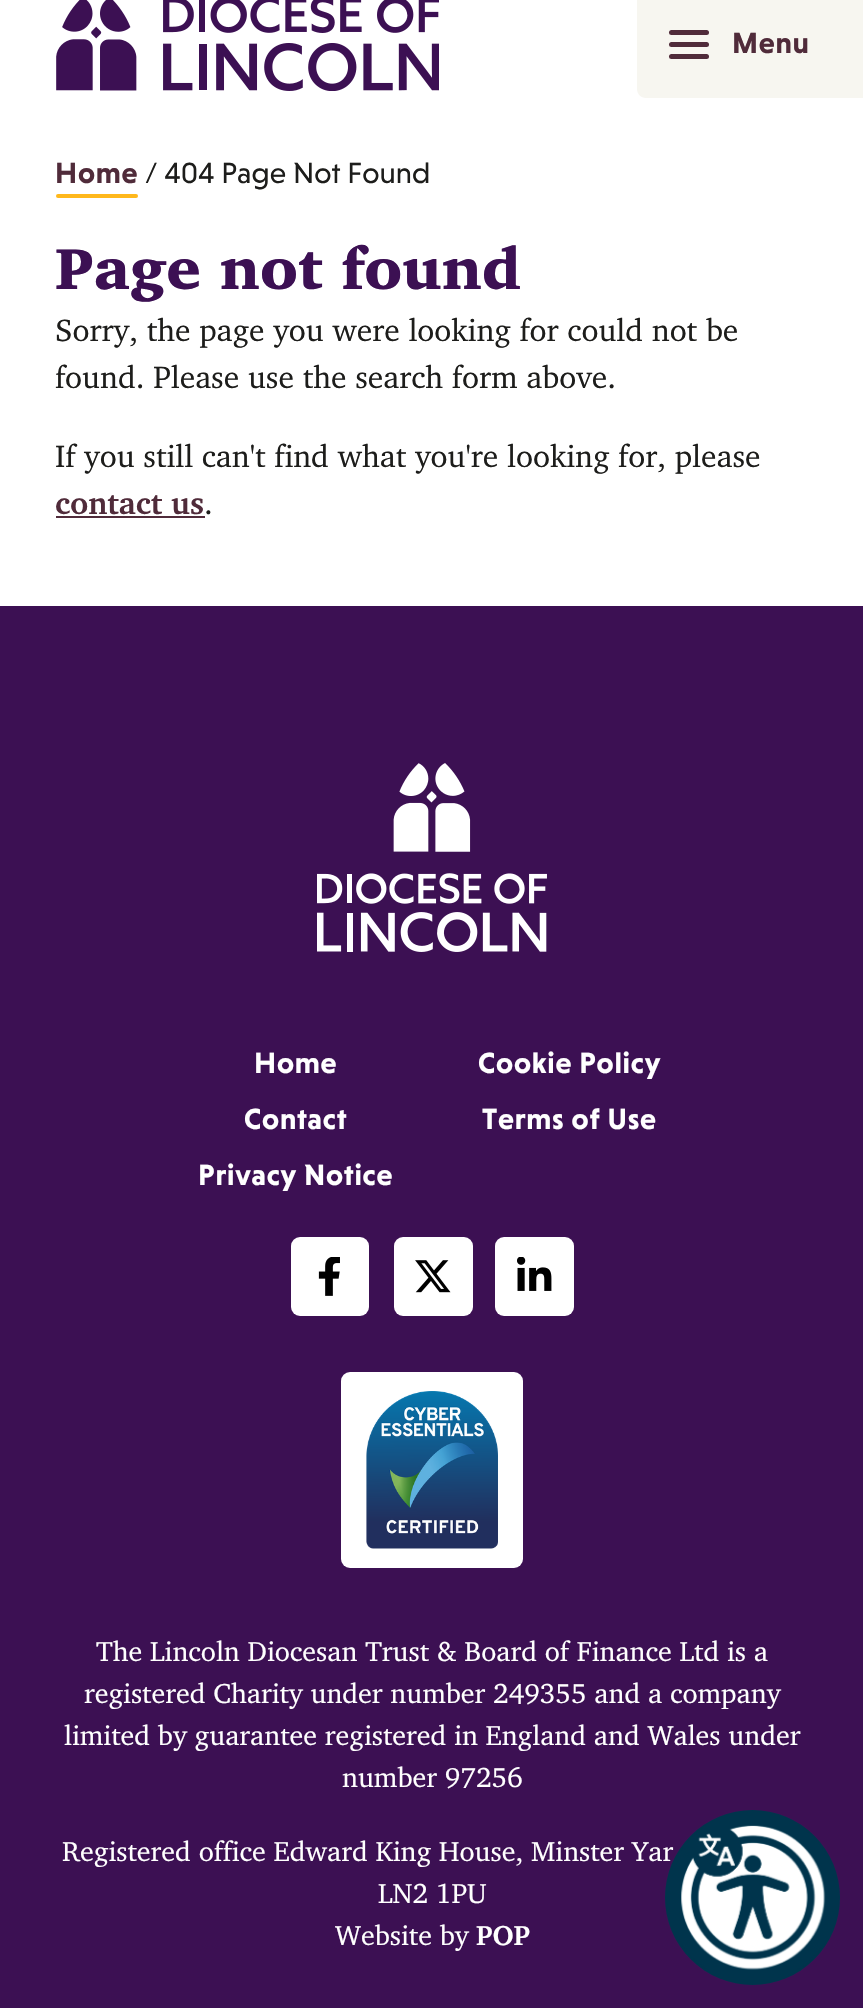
#include "include/core/SkBlurTypes.h"
#include "include/core/SkCanvas.h"
#include "include/core/SkData.h"
#include "include/core/SkFont.h"
#include "include/core/SkFontMgr.h"
#include "include/core/SkImage.h"
#include "include/core/SkMaskFilter.h"
#include "include/core/SkPaint.h"
#include "include/core/SkPathBuilder.h"
#include "include/core/SkTextBlob.h"
#include "include/effects/SkDashPathEffect.h"
#include "include/effects/SkGradientShader.h"
#include "include/utils/SkParsePath.h"

extern sk_sp<SkFontMgr> fontMgr;

void draw(SkCanvas* canvas) {
    SkPaint p;
    p.setAntiAlias(true);
    auto font = [&](const char* family, int weight, float size, bool italic = false) {
        SkFontStyle style(weight, SkFontStyle::kNormal_Width,
            italic ? SkFontStyle::kItalic_Slant : SkFontStyle::kUpright_Slant);
        SkFont result(fontMgr->matchFamilyStyle(family, style), size);
        result.setSubpixel(true);
        return result;
    };
    auto drawTracked = [&](const char* s, float x, float y, const SkFont& font, const SkPaint& ink, float letter, float word) {
        std::vector<SkGlyphID> glyphs(font.countText(s, strlen(s), SkTextEncoding::kUTF8));
        std::vector<float> xs(glyphs.size());
        font.textToGlyphs(s, strlen(s), SkTextEncoding::kUTF8, glyphs);
        font.getXPos(glyphs, xs, x);
        float extra = 0;
        for (size_t i = 0; i < glyphs.size(); i++) {
            xs[i] += extra;
            extra += letter + word * (glyphs[i] == font.unicharToGlyph(' '));
        }
        canvas->drawTextBlob(SkTextBlob::MakeFromPosHGlyphs(glyphs, xs, y, font), 0, 0, ink);
    };
    auto drawPhoto = [&](const char* path, float l, float t, float r, float b) {
        auto image = SkImages::DeferredFromEncodedData(SkData::MakeFromFileName(path));
        canvas->drawImageRect(image, SkRect::MakeLTRB(l, t, r, b), SkSamplingOptions());
    };
    canvas->clear(0xFFFFFFFF);
    drawPhoto("media/1.png", 56, 0, 439, 91);
    p.setColor(0xFFF7F6F0);
    canvas->drawPath(SkPathBuilder().moveTo(646, -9).lineTo(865, -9).lineTo(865, 98).lineTo(646, 98).cubicTo(641, 98, 637, 94, 637, 89).lineTo(637, 0).cubicTo(637, -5, 641, -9, 646, -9).close().detach(), p);
    p.setColor(0xFF502B3A);
    canvas->drawRoundRect(SkRect::MakeLTRB(669, 42, 709, 47), 2.5f, 2.5f, p);
    canvas->drawRoundRect(SkRect::MakeLTRB(669, 30, 709, 35), 2.5f, 2.5f, p);
    canvas->drawRoundRect(SkRect::MakeLTRB(669, 54, 709, 59), 2.5f, 2.5f, p);
    auto font1 = font("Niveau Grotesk", 700, 29.75f);
    drawTracked("Menu", 732, 53, font1, p, 0.75f, 0);
    drawTracked("Home", 55, 183, font1, p, 0.75f, 0);
    p.setColor(0xFFFFB81C);
    canvas->drawRoundRect(SkRect::MakeLTRB(56, 194, 138, 198), 2, 2, p);
    auto font2 = font("Niveau Grotesk", 400, 29.75f);
    p.setColor(0xFF1D1D1B);
    canvas->drawString("/ 404 Page Not Found", 145, 183, font2, p);
    auto font3 = font("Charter", 900, 59);
    p.setColor(0xFF3C1053);
    canvas->drawString("Page not found", 55, 289, font3, p);
    auto font4 = font("Charter", 400, 31.5f);
    p.setColor(0xFF1D1D1B);
    {
        const struct { const char* s; float x, y; } items[] = {
            {"Sorry, the page you were looking for could not be", 55, 341},
            {"found. Please use the search form above.", 55, 388},
            {"If you still can't find what you're looking for, please", 55, 467},
        };
        for (auto [s, x, y] : items) {
            canvas->drawString(s, x, y, font4, p);
        }
    }
    auto font5 = font("Charter", 700, 31.5f);
    p.setColor(0xFF502B3A);
    canvas->drawString("contact us", 55, 514, font5, p);
    canvas->drawRect(SkRect::MakeLTRB(56, 516, 205, 518), p);
    p.setColor(0xFF1D1D1B);
    canvas->drawString(".", 204, 514, font4, p);
    p.setColor(0xFF3C1053);
    canvas->drawRect(SkRect::MakeLTRB(0, 606, 863, 2008), p);
    drawPhoto("media/2.png", 317, 763, 547, 952);
    p.setColor(0xFFFFFFFF);
    {
        const struct { const char* s; float x, y; } items[] = {
            {"Home", 254, 1073},
            {"Cookie Policy", 478, 1073},
            {"Contact", 244, 1129},
            {"Terms of Use", 482, 1129},
            {"Privacy Notice", 198, 1185},
        };
        for (auto [s, x, y] : items) {
            drawTracked(s, x, y, font1, p, 0.75f, 0);
        }
    }
    canvas->drawRoundRect(SkRect::MakeLTRB(291, 1237, 369, 1316), 9, 9, p);
    drawPhoto("media/3.png", 318, 1257, 340, 1296);
    canvas->drawRoundRect(SkRect::MakeLTRB(394, 1237, 473, 1316), 9, 9, p);
    drawPhoto("media/4.png", 415, 1260, 451, 1293);
    canvas->drawRoundRect(SkRect::MakeLTRB(495, 1237, 574, 1316), 9, 9, p);
    drawPhoto("media/5.png", 517, 1257, 552, 1291);
    canvas->drawRoundRect(SkRect::MakeLTRB(341, 1372, 523, 1568), 9, 9, p);
    drawPhoto("media/6.png", 366, 1391, 498, 1549);
    auto font6 = font("Charter", 400, 28);
    {
        const struct { const char* s; float x, y; } items[] = {
            {"The Lincoln Diocesan Trust & Board of Finance Ltd is a", 96, 1661},
            {"registered Charity under number 249355 and a company", 84, 1703},
            {"limited by guarantee registered in England and Wales under", 64, 1745},
            {"number 97256", 342, 1787},
            {"Registered office Edward King House, Minster Yar", 62, 1861},
            {"LN2 1PU", 378, 1903},
            {"Website by", 335, 1945},
        };
        for (auto [s, x, y] : items) {
            canvas->drawString(s, x, y, font6, p);
        }
    }
    auto font7 = font("Charter", 700, 28);
    canvas->drawString("POP", 476, 1945, font7, p);
    p.setColor(0xFF00344C);
    canvas->drawCircle(752.5f, 1897.5f, 87.5f, p);
    drawPhoto("media/7.png", 681, 1825, 826, 1970);
}
